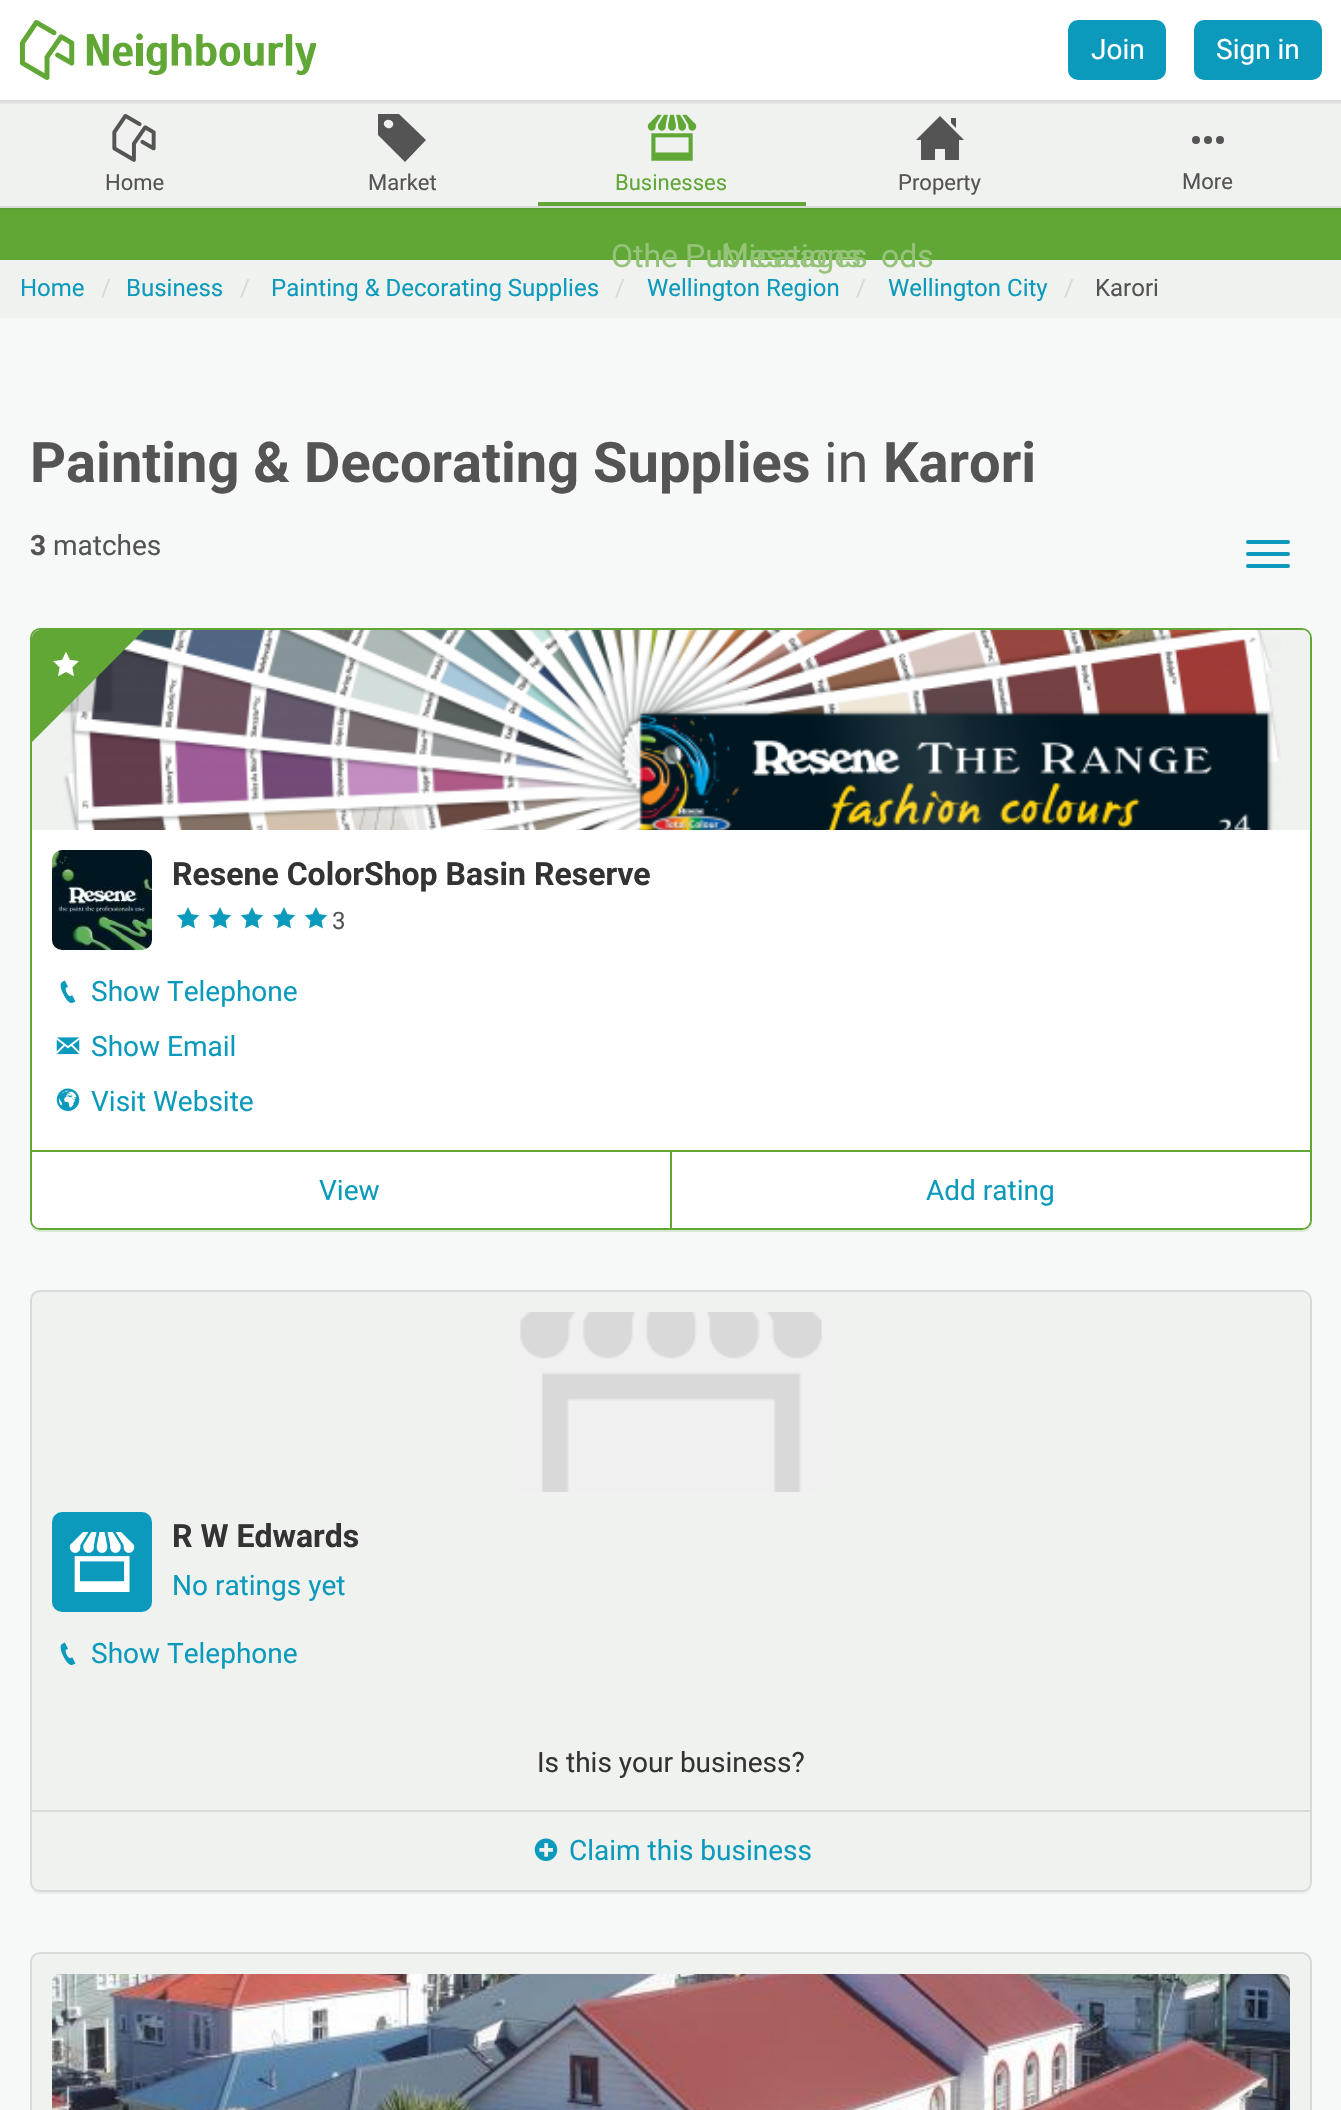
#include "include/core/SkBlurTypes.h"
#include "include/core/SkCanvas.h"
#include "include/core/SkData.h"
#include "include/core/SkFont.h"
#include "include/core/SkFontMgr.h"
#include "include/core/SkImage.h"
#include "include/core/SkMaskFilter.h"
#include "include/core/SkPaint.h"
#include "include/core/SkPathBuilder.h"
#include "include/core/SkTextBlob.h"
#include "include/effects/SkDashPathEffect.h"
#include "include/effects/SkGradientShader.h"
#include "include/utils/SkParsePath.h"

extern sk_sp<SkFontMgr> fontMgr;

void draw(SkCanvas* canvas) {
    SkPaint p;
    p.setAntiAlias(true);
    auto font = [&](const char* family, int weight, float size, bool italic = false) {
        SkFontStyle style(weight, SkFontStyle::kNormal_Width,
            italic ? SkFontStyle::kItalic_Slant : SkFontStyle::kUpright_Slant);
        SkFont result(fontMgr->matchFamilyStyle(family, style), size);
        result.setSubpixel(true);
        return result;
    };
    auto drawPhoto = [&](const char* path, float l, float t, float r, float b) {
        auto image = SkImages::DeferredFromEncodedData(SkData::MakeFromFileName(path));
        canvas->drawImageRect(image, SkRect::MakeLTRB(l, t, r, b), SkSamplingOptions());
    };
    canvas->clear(0xFFF7F9F8);
    {
        const struct { float l, t, r, b; SkColor color; } items[] = {
            {0, 102, 1341, 104, 0xFFE4E6E3},
            {0, 0, 1341, 100, 0xFFFFFFFF},
            {0, 100, 1341, 102, 0xFFD9D9D9},
        };
        for (auto [l, t, r, b, color] : items) {
            p.setColor(color);
            canvas->drawRect(SkRect::MakeLTRB(l, t, r, b), p);
        }
    }
    drawPhoto("media/1.png", 20, 20, 316, 80);
    p.setColor(0xFF0B9ABC);
    canvas->drawRoundRect(SkRect::MakeLTRB(1069, 21, 1165, 79), 9, 9, p);
    p.setStyle(SkPaint::kStroke_Style);
    p.setStrokeWidth(2);
    canvas->drawRoundRect(SkRect::MakeLTRB(1069, 21, 1165, 79), 9, 9, p);
    auto font1 = font("Roboto", 400, 28);
    p.setStyle(SkPaint::kFill_Style);
    p.setColor(0xFFFFFFFF);
    canvas->drawString("Join", 1091, 59, font1, p);
    p.setColor(0xFF0B9ABC);
    canvas->drawRoundRect(SkRect::MakeLTRB(1195, 21, 1321, 79), 9, 9, p);
    p.setStyle(SkPaint::kStroke_Style);
    canvas->drawRoundRect(SkRect::MakeLTRB(1195, 21, 1321, 79), 9, 9, p);
    p.setStyle(SkPaint::kFill_Style);
    p.setColor(0xFFFFFFFF);
    canvas->drawString("Sign in", 1216, 59, font1, p);
    {
        const struct { float l, t, r, b; SkColor color; } items[] = {
            {0, 208, 1341, 210, 0xFF5B9F32},
            {0, 104, 1341, 206, 0xFFF0F2EF},
            {0, 206, 1341, 208, 0xFFD9D9D9},
        };
        for (auto [l, t, r, b, color] : items) {
            p.setColor(color);
            canvas->drawRect(SkRect::MakeLTRB(l, t, r, b), p);
        }
    }
    drawPhoto("media/2.png", 112, 114, 156, 162);
    auto font2 = font("Roboto", 400, 22);
    p.setColor(0xFF545454);
    canvas->drawString("Home", 105, 190, font2, p);
    canvas->drawPath(SkPathBuilder().moveTo(378, 114).lineTo(378, 135).lineTo(405, 162).lineTo(426, 140).lineTo(399, 114).close().moveTo(392, 127).cubicTo(388, 131, 381, 125, 385, 121).cubicTo(390, 117, 396, 123, 392, 127).close().detach(), p);
    canvas->drawString("Market", 368, 190, font2, p);
    drawPhoto("media/3.png", 647, 114, 697, 161);
    p.setColor(0xFF60A735);
    canvas->drawString("Businesses", 615, 190, font2, p);
    canvas->drawRect(SkRect::MakeLTRB(538, 202, 806, 206), p);
    p.setColor(0xFF545454);
    canvas->drawPath(SkPathBuilder().moveTo(959, 140).lineTo(959, 160).lineTo(945, 160).lineTo(945, 149).lineTo(935, 149).lineTo(935, 160).lineTo(921, 160).lineTo(921, 140).lineTo(916, 140).lineTo(940, 116).lineTo(964, 140).close().moveTo(956, 118).lineTo(951, 118).lineTo(951, 123).lineTo(956, 128).close().detach(), p);
    canvas->drawString("Property", 898, 190, font2, p);
    canvas->drawCircle(1208, 140, 4, p);
    canvas->drawCircle(1196, 140, 4, p);
    canvas->drawCircle(1220, 140, 4, p);
    canvas->drawString("More", 1182, 189, font2, p);
    p.setColor(0xFF60A735);
    canvas->drawRect(SkRect::MakeLTRB(0, 210, 1341, 260), p);
    p.setColor(0xFFF0F2EF);
    canvas->drawRect(SkRect::MakeLTRB(0, 260, 1341, 318), p);
    auto font3 = font("Roboto", 400, 32);
    p.setColor(0xFF95C37A);
    {
        const struct { const char* s; float x, y; } items[] = {
            {"Othe", 611, 267},
            {"ods", 881, 267},
            {"Publications", 685, 267},
            {"Messages", 721, 267},
        };
        for (auto [s, x, y] : items) {
            canvas->drawString(s, x, y, font3, p);
        }
    }
    auto font4 = font("Roboto", 400, 24);
    p.setColor(0xFF0B9ABC);
    canvas->drawString("Home", 20, 296, font4, p);
    p.setColor(0xFFD9D9D9);
    canvas->drawString("/", 101, 296, font4, p);
    p.setColor(0xFF0B9ABC);
    canvas->drawString("Business", 126, 296, font4, p);
    p.setColor(0xFFD9D9D9);
    canvas->drawString("/", 240, 296, font4, p);
    p.setColor(0xFF0B9ABC);
    canvas->drawString("Painting & Decorating Supplies", 271, 296, font4, p);
    p.setColor(0xFFD9D9D9);
    canvas->drawString("/", 615, 296, font4, p);
    p.setColor(0xFF0B9ABC);
    canvas->drawString("Wellington Region", 647, 296, font4, p);
    p.setColor(0xFFD9D9D9);
    canvas->drawString("/", 856, 296, font4, p);
    p.setColor(0xFF0B9ABC);
    canvas->drawString("Wellington City", 888, 296, font4, p);
    p.setColor(0xFFD9D9D9);
    canvas->drawString("/", 1064, 296, font4, p);
    p.setColor(0xFF545454);
    canvas->drawString("Karori", 1095, 296, font4, p);
    auto font5 = font("Roboto", 700, 56);
    canvas->drawString("Painting & Decorating Supplies", 30, 482, font5, p);
    auto font6 = font("Roboto", 400, 56);
    canvas->drawString("in", 824, 482, font6, p);
    canvas->drawString("Karori", 883, 482, font5, p);
    auto font7 = font("Roboto", 700, 28);
    canvas->drawString("3", 30, 555, font7, p);
    canvas->drawString("matches", 53, 555, font1, p);
    p.setColor(0xFFD9E9D1);
    canvas->drawPath(SkPathBuilder().moveTo(30, 1220).cubicTo(30, 1226, 33, 1232, 40, 1232).lineTo(1302, 1232).cubicTo(1309, 1232, 1312, 1226, 1312, 1220).cubicTo(1312, 1226, 1308, 1230, 1302, 1230).lineTo(40, 1230).cubicTo(34, 1230, 30, 1226, 30, 1220).close().detach(), p);
    p.setColor(0xFFFFFFFF);
    canvas->drawRoundRect(SkRect::MakeLTRB(31, 629, 1311, 1229), 9, 9, p);
    p.setStyle(SkPaint::kStroke_Style);
    p.setColor(0xFF60A735);
    canvas->drawRoundRect(SkRect::MakeLTRB(31, 629, 1311, 1229), 9, 9, p);
    p.setStyle(SkPaint::kFill_Style);
    p.setColor(0xFFF0F2EF);
    canvas->drawPath(SkPathBuilder().moveTo(40, 630).lineTo(1302, 630).cubicTo(1306.5f, 630, 1310, 633.5f, 1310, 638).lineTo(1310, 830).lineTo(32, 830).lineTo(32, 638).cubicTo(32, 633.5f, 35.5f, 630, 40, 630).close().detach(), p);
    drawPhoto("media/4.png", 63, 630, 1281, 830);
    canvas->save();
    canvas->clipPath(SkPathBuilder().moveTo(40, 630).lineTo(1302, 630).cubicTo(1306.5f, 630, 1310, 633.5f, 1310, 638).lineTo(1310, 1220).cubicTo(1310, 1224.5f, 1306.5f, 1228, 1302, 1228).lineTo(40, 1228).cubicTo(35.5f, 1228, 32, 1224.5f, 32, 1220).lineTo(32, 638).cubicTo(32, 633.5f, 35.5f, 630, 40, 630).close().detach(), true);
    p.setColor(0x26000000);
    p.setMaskFilter(SkMaskFilter::MakeBlur(kNormal_SkBlurStyle, 1));
    canvas->drawRect(SkRect::MakeLTRB(-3, 552, 112, 712), p);
    p.setMaskFilter(nullptr);
    canvas->restore();
    p.setColor(0xFF60A735);
    canvas->drawPath(SkPathBuilder().moveTo(40, 630).lineTo(144, 630).lineTo(32, 742).lineTo(32, 638).cubicTo(32, 634, 36, 630, 40, 630).close().detach(), p);
    drawPhoto("media/5.png", 53, 652, 79, 677);
    drawPhoto("media/6.png", 52, 850, 152, 950);
    auto font8 = font("Roboto", 700, 32);
    p.setColor(0xFF333333);
    canvas->drawString("Resene ColorShop Basin Reserve", 172, 885, font8, p);
    drawPhoto("media/7.png", 176, 907, 200, 929);
    drawPhoto("media/7.png", 208, 907, 232, 929);
    drawPhoto("media/7.png", 240, 907, 264, 929);
    drawPhoto("media/7.png", 272, 907, 296, 929);
    drawPhoto("media/7.png", 304, 907, 328, 929);
    p.setColor(0xFF545454);
    canvas->drawString("3", 332, 929, font4, p);
    drawPhoto("media/8.png", 60, 980, 76, 1003);
    p.setColor(0xFF0B9ABC);
    canvas->drawString("Show Telephone", 91, 1001, font1, p);
    drawPhoto("media/9.png", 56, 1037, 80, 1055);
    canvas->drawString("Show Email", 91, 1056, font1, p);
    drawPhoto("media/10.png", 56, 1088, 80, 1111);
    canvas->drawString("Visit Website", 91, 1111, font1, p);
    canvas->save();
    canvas->clipPath(SkPathBuilder().moveTo(40, 630).lineTo(1302, 630).cubicTo(1306.5f, 630, 1310, 633.5f, 1310, 638).lineTo(1310, 1220).cubicTo(1310, 1224.5f, 1306.5f, 1228, 1302, 1228).lineTo(40, 1228).cubicTo(35.5f, 1228, 32, 1224.5f, 32, 1220).lineTo(32, 638).cubicTo(32, 633.5f, 35.5f, 630, 40, 630).close().detach(), true);
    p.setColor(0xFFFFFFFF);
    canvas->drawPath(SkPathBuilder().moveTo(30, 1150).lineTo(672, 1150).lineTo(672, 1230).lineTo(40, 1230).cubicTo(34.5f, 1230, 30, 1225.5f, 30, 1220).close().detach(), p);
    canvas->restore();
    p.setColor(0xFF60A735);
    canvas->drawRect(SkRect::MakeLTRB(32, 1150, 672, 1152), p);
    p.setColor(0xFF0B9ABC);
    canvas->drawString("View", 319, 1200, font1, p);
    canvas->save();
    canvas->clipPath(SkPathBuilder().moveTo(40, 630).lineTo(1302, 630).cubicTo(1306.5f, 630, 1310, 633.5f, 1310, 638).lineTo(1310, 1220).cubicTo(1310, 1224.5f, 1306.5f, 1228, 1302, 1228).lineTo(40, 1228).cubicTo(35.5f, 1228, 32, 1224.5f, 32, 1220).lineTo(32, 638).cubicTo(32, 633.5f, 35.5f, 630, 40, 630).close().detach(), true);
    p.setColor(0xFFFFFFFF);
    canvas->drawPath(SkPathBuilder().moveTo(670, 1150).lineTo(1310, 1150).lineTo(1310, 1220).cubicTo(1310, 1225.5f, 1305.5f, 1230, 1300, 1230).lineTo(670, 1230).close().detach(), p);
    canvas->restore();
    p.setColor(0xFF60A735);
    canvas->drawRect(SkRect::MakeLTRB(670, 1150, 1310, 1152), p);
    canvas->drawRect(SkRect::MakeLTRB(670, 1150, 672, 1228), p);
    p.setColor(0xFF0B9ABC);
    canvas->drawString("Add rating", 926, 1200, font1, p);
    p.setColor(0xFFEBEDEC);
    canvas->drawPath(SkPathBuilder().moveTo(30, 1882).cubicTo(30, 1888, 33, 1894, 40, 1894).lineTo(1302, 1894).cubicTo(1309, 1894, 1312, 1888, 1312, 1882).cubicTo(1312, 1888, 1308, 1892, 1302, 1892).lineTo(40, 1892).cubicTo(34, 1892, 30, 1888, 30, 1882).close().detach(), p);
    p.setColor(0xFFF0F2EF);
    canvas->drawRoundRect(SkRect::MakeLTRB(31, 1291, 1311, 1891), 9, 9, p);
    p.setStyle(SkPaint::kStroke_Style);
    p.setColor(0xFFD9D9D9);
    canvas->drawRoundRect(SkRect::MakeLTRB(31, 1291, 1311, 1891), 9, 9, p);
    drawPhoto("media/11.png", 520, 1312, 822, 1492);
    drawPhoto("media/12.png", 52, 1512, 152, 1612);
    p.setStyle(SkPaint::kFill_Style);
    p.setColor(0xFF333333);
    canvas->drawString("R W Edwards", 172, 1547, font8, p);
    p.setColor(0xFF0B9ABC);
    canvas->drawString("No ratings yet", 172, 1595, font1, p);
    drawPhoto("media/13.png", 60, 1642, 76, 1665);
    canvas->drawString("Show Telephone", 91, 1663, font1, p);
    p.setColor(0xFF333333);
    canvas->drawString("Is this your business?", 537, 1772, font1, p);
    canvas->save();
    canvas->clipPath(SkPathBuilder().moveTo(40, 1292).lineTo(1302, 1292).cubicTo(1306.5f, 1292, 1310, 1295.5f, 1310, 1300).lineTo(1310, 1882).cubicTo(1310, 1886.5f, 1306.5f, 1890, 1302, 1890).lineTo(40, 1890).cubicTo(35.5f, 1890, 32, 1886.5f, 32, 1882).lineTo(32, 1300).cubicTo(32, 1295.5f, 35.5f, 1292, 40, 1292).close().detach(), true);
    p.setColor(0xFFF0F2EF);
    canvas->drawPath(SkPathBuilder().moveTo(30, 1810).lineTo(1312, 1810).lineTo(1312, 1880).cubicTo(1312, 1885.5f, 1307.5f, 1890, 1302, 1890).lineTo(40, 1890).cubicTo(34.5f, 1890, 30, 1885.5f, 30, 1880).close().detach(), p);
    canvas->restore();
    p.setColor(0xFFD9D9D9);
    canvas->drawRect(SkRect::MakeLTRB(32, 1810, 1310, 1812), p);
    drawPhoto("media/14.png", 534, 1838, 558, 1861);
    p.setColor(0xFF0B9ABC);
    canvas->drawString("Claim this business", 569, 1860, font1, p);
    p.setColor(0xFFF0F2EF);
    canvas->drawRoundRect(SkRect::MakeLTRB(31, 1953, 1311, 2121), 9, 9, p);
    p.setStyle(SkPaint::kStroke_Style);
    p.setColor(0xFFD9D9D9);
    canvas->drawRoundRect(SkRect::MakeLTRB(31, 1953, 1311, 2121), 9, 9, p);
    drawPhoto("media/15.png", 52, 1974, 1290, 2110);
    p.setStyle(SkPaint::kFill_Style);
    p.setColor(0xFF0B9ABC);
    canvas->drawRoundRect(SkRect::MakeLTRB(1246, 540, 1290, 544), 2, 2, p);
    canvas->drawRoundRect(SkRect::MakeLTRB(1246, 552, 1290, 556), 2, 2, p);
    canvas->drawRoundRect(SkRect::MakeLTRB(1246, 564, 1290, 568), 2, 2, p);
}
